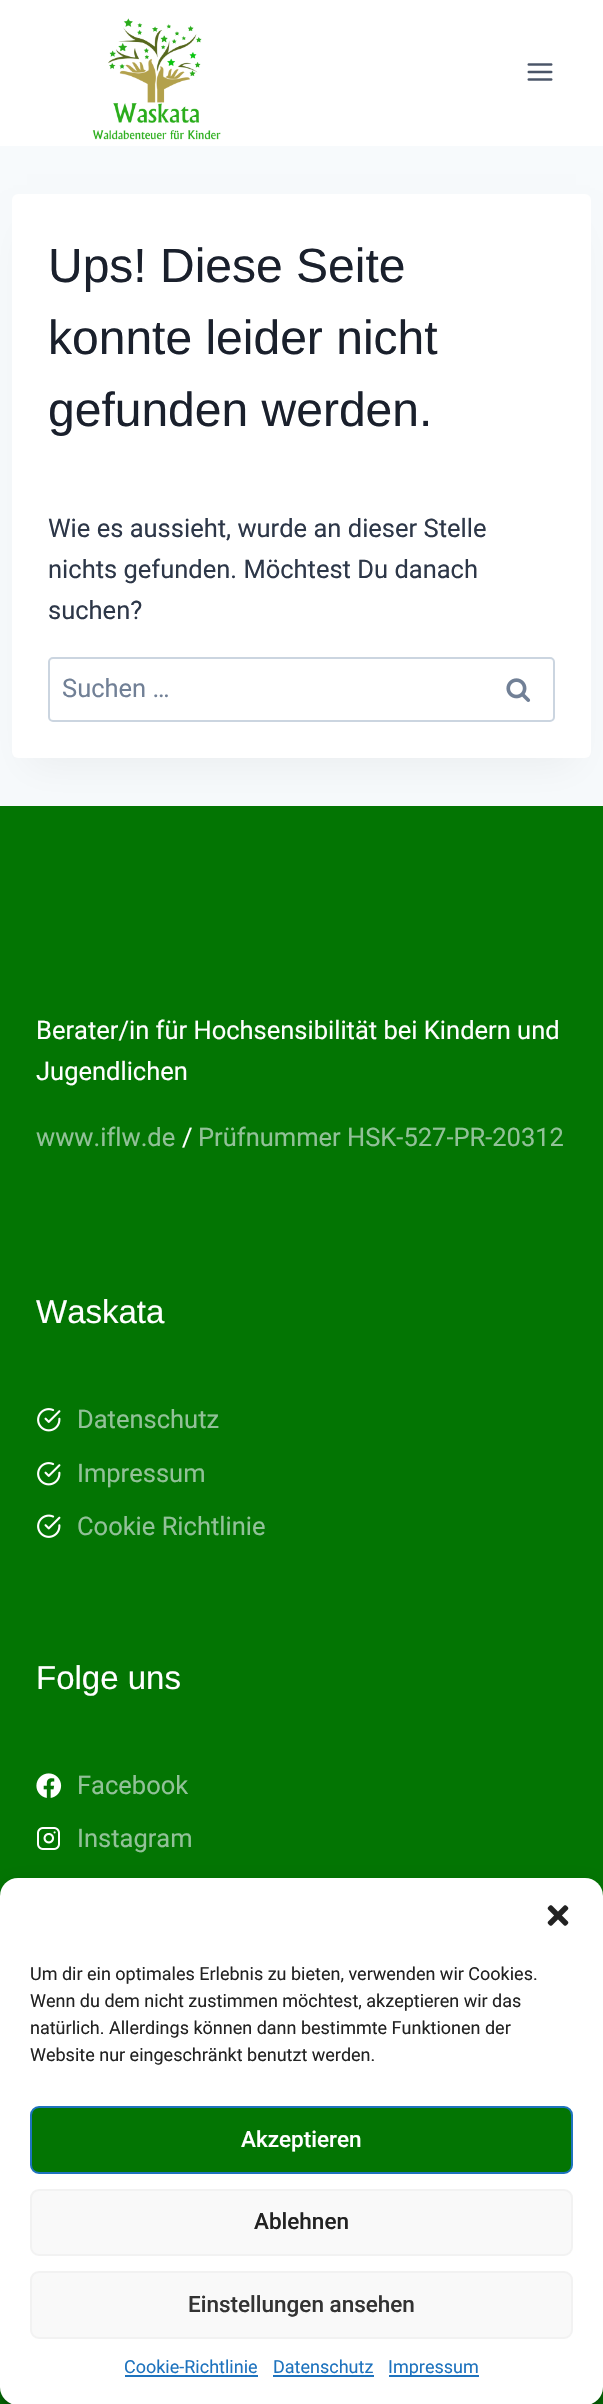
#include "include/core/SkBlurTypes.h"
#include "include/core/SkCanvas.h"
#include "include/core/SkData.h"
#include "include/core/SkFont.h"
#include "include/core/SkFontMgr.h"
#include "include/core/SkImage.h"
#include "include/core/SkMaskFilter.h"
#include "include/core/SkPaint.h"
#include "include/core/SkPathBuilder.h"
#include "include/core/SkTextBlob.h"
#include "include/effects/SkDashPathEffect.h"
#include "include/effects/SkGradientShader.h"
#include "include/utils/SkParsePath.h"

extern sk_sp<SkFontMgr> fontMgr;

void draw(SkCanvas* canvas) {
    SkPaint p;
    p.setAntiAlias(true);
    auto font = [&](const char* family, int weight, float size, bool italic = false) {
        SkFontStyle style(weight, SkFontStyle::kNormal_Width,
            italic ? SkFontStyle::kItalic_Slant : SkFontStyle::kUpright_Slant);
        SkFont result(fontMgr->matchFamilyStyle(family, style), size);
        result.setSubpixel(true);
        return result;
    };
    auto drawPhoto = [&](const char* path, float l, float t, float r, float b) {
        auto image = SkImages::DeferredFromEncodedData(SkData::MakeFromFileName(path));
        canvas->drawImageRect(image, SkRect::MakeLTRB(l, t, r, b), SkSamplingOptions());
    };
    canvas->clear(0xFFF7FAFC);
    p.setColor(0xFFFFFFFF);
    canvas->drawRect(SkRect::MakeLTRB(0, 0, 603, 146), p);
    drawPhoto("media/1.png", 92, 18, 221, 140);
    drawPhoto("media/2.png", 527, 63, 553, 81);
    p.setColor(0xFF037503);
    canvas->drawRect(SkRect::MakeLTRB(0, 806, 603, 2404), p);
    p.setColor(0x0D000000);
    p.setMaskFilter(SkMaskFilter::MakeBlur(kNormal_SkBlurStyle, 19));
    canvas->drawRect(SkRect::MakeLTRB(27, 231, 576, 765), p);
    p.setMaskFilter(nullptr);
    p.setColor(0xFFFFFFFF);
    canvas->drawRoundRect(SkRect::MakeLTRB(12, 194, 591, 758), 6, 6, p);
    auto font1 = font("Liberation Sans", 400, 48);
    p.setColor(0xFF1A202C);
    {
        const struct { const char* s; float x, y; } items[] = {
            {"Ups! Diese Seite", 48, 282},
            {"konnte leider nicht", 48, 354},
            {"gefunden werden.", 48, 426},
        };
        for (auto [s, x, y] : items) {
            canvas->drawString(s, x, y, font1, p);
        }
    }
    auto font2 = font("Roboto", 400, 25.5f);
    p.setColor(0xFF2D3748);
    {
        const struct { const char* s; float x, y; } items[] = {
            {"Wie es aussieht, wurde an dieser Stelle", 48, 537},
            {"nichts gefunden. Möchtest Du danach", 48, 578},
            {"suchen?", 48, 619},
        };
        for (auto [s, x, y] : items) {
            canvas->drawString(s, x, y, font2, p);
        }
    }
    p.setStyle(SkPaint::kStroke_Style);
    p.setStrokeWidth(2);
    p.setColor(0xFFCBD5E0);
    canvas->drawRoundRect(SkRect::MakeLTRB(49, 658, 554, 721), 4, 4, p);
    p.setStyle(SkPaint::kFill_Style);
    p.setColor(0xFF718096);
    canvas->drawString("Suchen …", 62, 697, font2, p);
    drawPhoto("media/3.png", 506, 678, 531, 702);
    p.setColor(0xFFFFFFFF);
    canvas->drawString("Berater/in für Hochsensibilität bei Kindern und", 36, 1039, font2, p);
    canvas->drawString("Jugendlichen", 36, 1080, font2, p);
    p.setColor(0xFF92C198);
    canvas->drawString("www.iflw.de", 36, 1146, font2, p);
    p.setColor(0xFFFFFFFF);
    canvas->drawString("/", 182, 1146, font2, p);
    p.setColor(0xFF92C198);
    canvas->drawString("Prüfnummer HSK-527-PR-20312", 198, 1146, font2, p);
    auto font3 = font("Liberation Sans", 400, 33);
    p.setColor(0xFFFFFFFF);
    canvas->drawString("Waskata", 36, 1323, font3, p);
    drawPhoto("media/4.png", 37, 1408, 61, 1432);
    p.setColor(0xFF92C198);
    canvas->drawString("Datenschutz", 77, 1428, font2, p);
    drawPhoto("media/4.png", 37, 1462, 61, 1486);
    canvas->drawString("Impressum", 77, 1482, font2, p);
    drawPhoto("media/5.png", 37, 1514, 61, 1538);
    canvas->drawString("Cookie Richtlinie", 77, 1535, font2, p);
    p.setColor(0xFFFFFFFF);
    canvas->drawString("Folge uns", 36, 1689, font3, p);
    drawPhoto("media/6.png", 36, 1773, 62, 1798);
    p.setColor(0xFF92C198);
    canvas->drawString("Facebook", 77, 1794, font2, p);
    drawPhoto("media/7.png", 37, 1827, 60, 1850);
    canvas->drawString("Instagram", 77, 1847, font2, p);
    p.setColor(0x3B000000);
    p.setMaskFilter(SkMaskFilter::MakeBlur(kNormal_SkBlurStyle, 4.5f));
    canvas->drawRoundRect(SkRect::MakeLTRB(0, 1887, 603, 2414), 18, 18, p);
    p.setMaskFilter(nullptr);
    p.setColor(0x30000000);
    p.setMaskFilter(SkMaskFilter::MakeBlur(kNormal_SkBlurStyle, 15));
    canvas->drawRoundRect(SkRect::MakeLTRB(0, 1893, 603, 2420), 18, 18, p);
    p.setMaskFilter(nullptr);
    p.setColor(0xFFFFFFFF);
    canvas->drawRoundRect(SkRect::MakeLTRB(0, 1878, 603, 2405), 18, 18, p);
    drawPhoto("media/8.png", 547, 1905, 569, 1926);
    auto font4 = font("Roboto", 400, 18);
    p.setColor(0xFF222222);
    {
        const struct { const char* s; float x, y; } items[] = {
            {"Um dir ein optimales Erlebnis zu bieten, verwenden wir Cookies.", 30, 1980},
            {"Wenn du dem nicht zustimmen möchtest, akzeptieren wir das", 30, 2007},
            {"natürlich. Allerdings können dann bestimmte Funktionen der", 30, 2034},
            {"Website nur eingeschränkt benutzt werden.", 30, 2061},
        };
        for (auto [s, x, y] : items) {
            canvas->drawString(s, x, y, font4, p);
        }
    }
    p.setColor(0xFF037503);
    canvas->drawRoundRect(SkRect::MakeLTRB(31, 2107, 572, 2173), 8, 8, p);
    p.setStyle(SkPaint::kStroke_Style);
    p.setColor(0xFF1E73BE);
    canvas->drawRoundRect(SkRect::MakeLTRB(31, 2107, 572, 2173), 8, 8, p);
    auto font5 = font("Roboto", 500, 22.5f);
    p.setStyle(SkPaint::kFill_Style);
    p.setColor(0xFFFFFFFF);
    canvas->drawString("Akzeptieren", 241, 2147, font5, p);
    p.setColor(0xFFF9F9F9);
    canvas->drawRoundRect(SkRect::MakeLTRB(31, 2190, 572, 2255), 8, 8, p);
    p.setStyle(SkPaint::kStroke_Style);
    p.setColor(0xFFF2F2F2);
    canvas->drawRoundRect(SkRect::MakeLTRB(31, 2190, 572, 2255), 8, 8, p);
    p.setStyle(SkPaint::kFill_Style);
    p.setColor(0xFF222222);
    canvas->drawString("Ablehnen", 254, 2229, font5, p);
    p.setColor(0xFFF9F9F9);
    canvas->drawRoundRect(SkRect::MakeLTRB(31, 2272, 572, 2338), 8, 8, p);
    p.setStyle(SkPaint::kStroke_Style);
    p.setColor(0xFFF2F2F2);
    canvas->drawRoundRect(SkRect::MakeLTRB(31, 2272, 572, 2338), 8, 8, p);
    p.setStyle(SkPaint::kFill_Style);
    p.setColor(0xFF333333);
    canvas->drawString("Einstellungen ansehen", 188, 2312, font5, p);
    p.setColor(0xFF1E73BE);
    canvas->drawString("Cookie-Richtlinie", 124, 2373, font4, p);
    canvas->drawRect(SkRect::MakeLTRB(125, 2375, 258, 2377), p);
    canvas->drawString("Datenschutz", 273, 2373, font4, p);
    canvas->drawRect(SkRect::MakeLTRB(273, 2375, 374, 2377), p);
    canvas->drawRect(SkRect::MakeLTRB(389, 2375, 479, 2377), p);
    canvas->drawString("Impressum", 388, 2373, font4, p);
}
